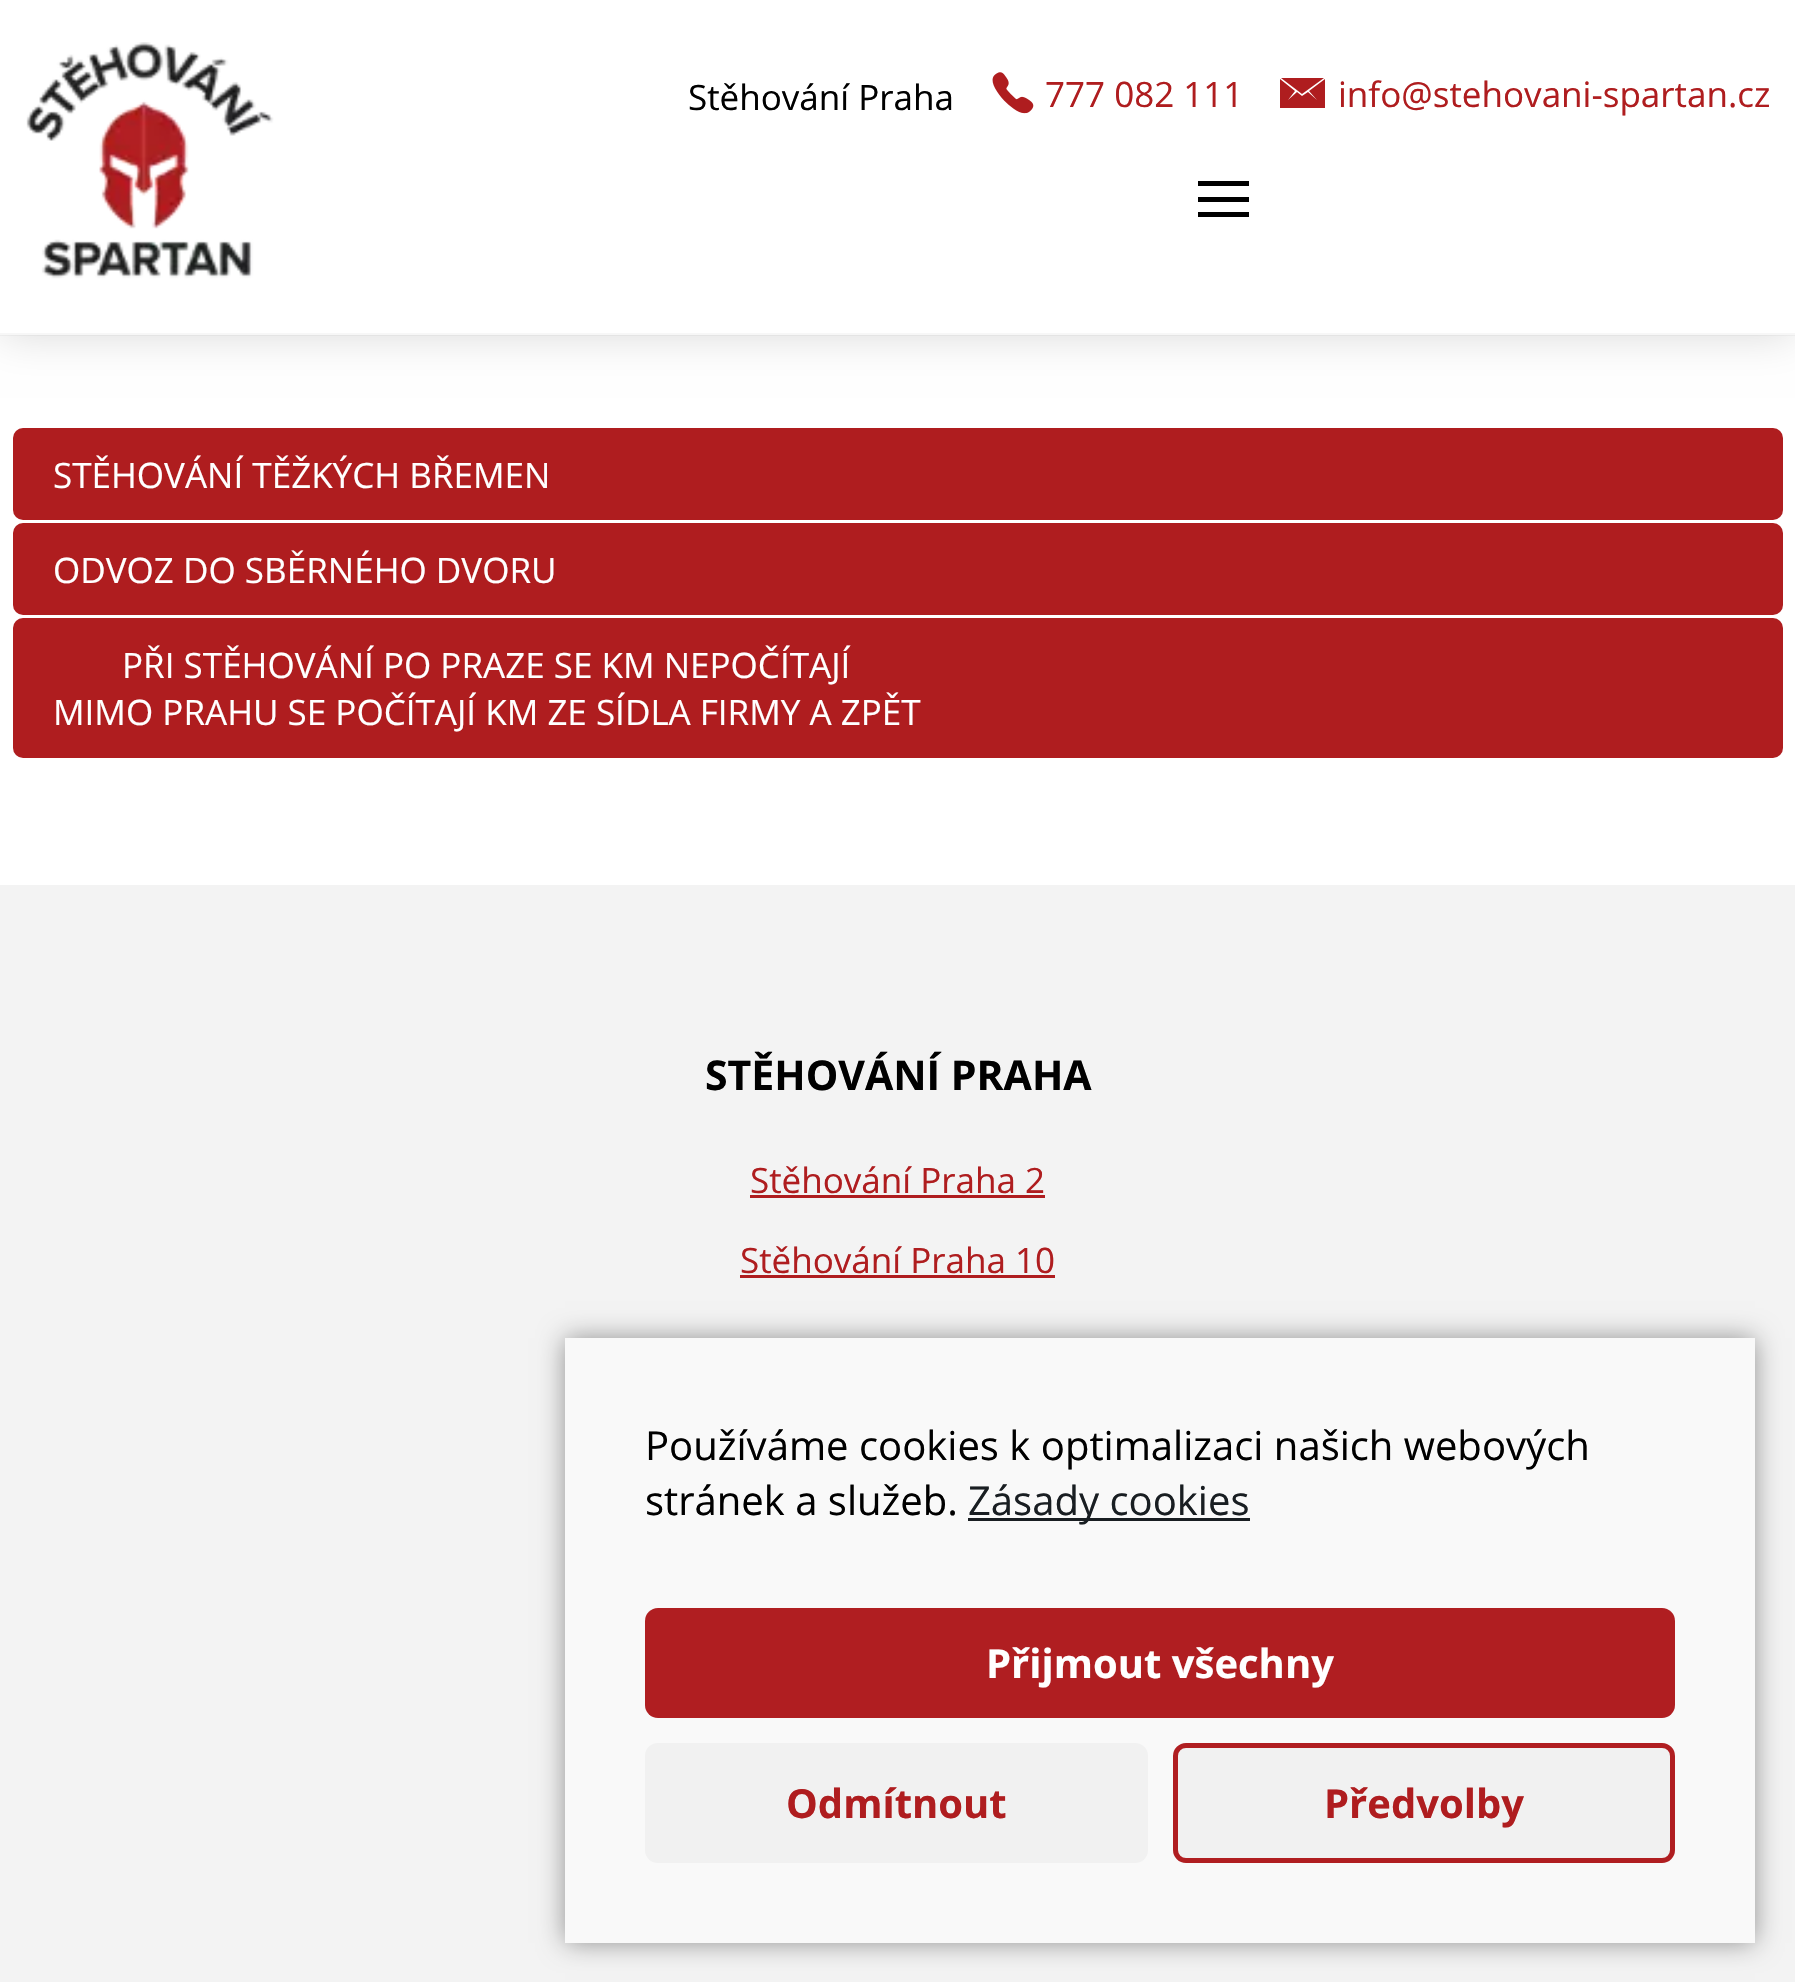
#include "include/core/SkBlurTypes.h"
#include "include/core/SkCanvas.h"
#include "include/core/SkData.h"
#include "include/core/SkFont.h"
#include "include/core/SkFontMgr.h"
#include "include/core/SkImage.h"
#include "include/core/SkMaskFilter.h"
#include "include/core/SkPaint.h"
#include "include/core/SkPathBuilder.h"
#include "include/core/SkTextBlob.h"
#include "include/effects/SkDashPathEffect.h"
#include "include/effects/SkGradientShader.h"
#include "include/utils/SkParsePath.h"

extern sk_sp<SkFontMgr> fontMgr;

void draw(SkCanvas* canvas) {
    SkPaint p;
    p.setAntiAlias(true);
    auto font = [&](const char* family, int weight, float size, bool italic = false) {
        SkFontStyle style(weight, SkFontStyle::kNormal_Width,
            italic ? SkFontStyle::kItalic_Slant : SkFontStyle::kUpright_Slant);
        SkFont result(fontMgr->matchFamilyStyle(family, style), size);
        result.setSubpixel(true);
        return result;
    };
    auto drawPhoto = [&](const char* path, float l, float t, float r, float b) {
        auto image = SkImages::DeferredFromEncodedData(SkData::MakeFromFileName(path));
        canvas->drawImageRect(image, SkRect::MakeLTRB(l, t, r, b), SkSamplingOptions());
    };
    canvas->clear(0xFFFFFFFF);
    p.setColor(0x26000000);
    p.setMaskFilter(SkMaskFilter::MakeBlur(kNormal_SkBlurStyle, 21));
    canvas->drawRect(SkRect::MakeLTRB(0, 0, 1795, 335), p);
    p.setMaskFilter(nullptr);
    p.setColor(0xFFFFFFFF);
    canvas->drawRect(SkRect::MakeLTRB(0, 0, 1795, 335), p);
    p.setColor(0x08000000);
    canvas->drawRect(SkRect::MakeLTRB(0, 333, 1795, 336), p);
    drawPhoto("media/1.png", 26, 42, 274, 279);
    auto font1 = font("Open Sans", 400, 35);
    p.setColor(0xFF000000);
    canvas->drawString("Stěhování Praha", 688, 110, font1, p);
    drawPhoto("media/2.png", 992, 72, 1034, 114);
    p.setColor(0xFFAF1D1F);
    canvas->drawString("777 082 111", 1045, 107, font1, p);
    canvas->drawPath(SkPathBuilder().moveTo(1325, 108).lineTo(1280, 108).lineTo(1280, 79).lineTo(1295, 91).lineTo(1288, 100).lineTo(1297, 92).lineTo(1302, 96).lineTo(1308, 92).lineTo(1317, 100).lineTo(1309, 91).lineTo(1325, 79).close().moveTo(1324, 78).lineTo(1302, 94).lineTo(1281, 78).close().detach(), p);
    canvas->drawString("info@stehovani-spartan.cz", 1338, 107, font1, p);
    p.setColor(0xFF000000);
    canvas->drawPath(SkPathBuilder().moveTo(1198, 202).lineTo(1198, 197).lineTo(1249, 197).lineTo(1249, 202).close().moveTo(1198, 186).lineTo(1198, 181).lineTo(1249, 181).lineTo(1249, 186).close().moveTo(1198, 217).lineTo(1198, 212).lineTo(1249, 212).lineTo(1249, 217).close().detach(), p);
    p.setColor(0xFFAF1D1F);
    canvas->drawRoundRect(SkRect::MakeLTRB(13, 428, 1783, 520), 10, 10, p);
    p.setColor(0xFFFFFFFF);
    canvas->drawString("STĚHOVÁNÍ TĚŽKÝCH BŘEMEN", 53, 488, font1, p);
    p.setColor(0xFFAF1D1F);
    canvas->drawRoundRect(SkRect::MakeLTRB(13, 523, 1783, 615), 10, 10, p);
    p.setColor(0xFFFFFFFF);
    canvas->drawString("ODVOZ DO SBĚRNÉHO DVORU", 53, 583, font1, p);
    p.setColor(0xFFAF1D1F);
    canvas->drawRoundRect(SkRect::MakeLTRB(13, 618, 1783, 758), 10, 10, p);
    p.setColor(0xFFFFFFFF);
    canvas->drawString("PŘI STĚHOVÁNÍ PO PRAZE SE KM NEPOČÍTAJÍ", 122, 678, font1, p);
    canvas->drawString("MIMO PRAHU SE POČÍTAJÍ KM ZE SÍDLA FIRMY A ZPĚT", 53, 725, font1, p);
    p.setColor(0xFFF3F3F3);
    canvas->drawRect(SkRect::MakeLTRB(0, 885, 1795, 1982), p);
    auto font2 = font("Open Sans", 700, 41);
    p.setColor(0xFF000000);
    canvas->drawString("STĚHOVÁNÍ PRAHA", 705, 1090, font2, p);
    p.setColor(0xFFAF1D1F);
    canvas->drawString("Stěhování Praha 2", 750, 1193, font1, p);
    canvas->drawRect(SkRect::MakeLTRB(750, 1195, 1045, 1198), p);
    canvas->drawString("Stěhování Praha 10", 740, 1273, font1, p);
    canvas->drawRect(SkRect::MakeLTRB(740, 1275, 1055, 1278), p);
    p.setColor(0x66000000);
    p.setMaskFilter(SkMaskFilter::MakeBlur(kNormal_SkBlurStyle, 12.5f));
    canvas->drawRect(SkRect::MakeLTRB(565, 1338, 1755, 1943), p);
    p.setMaskFilter(nullptr);
    p.setColor(0xFFF9F9F9);
    canvas->drawRect(SkRect::MakeLTRB(565, 1338, 1755, 1943), p);
    auto font3 = font("Open Sans", 400, 40);
    p.setColor(0xFF000000);
    canvas->drawString("Používáme cookies k optimalizaci našich webových", 645, 1460, font3, p);
    canvas->drawString("stránek a služeb.", 645, 1515, font3, p);
    p.setColor(0xFF191E22);
    canvas->drawRect(SkRect::MakeLTRB(968, 1518, 1250, 1521), p);
    canvas->drawString("Zásady cookies", 968, 1515, font3, p);
    p.setColor(0xFFB01E21);
    canvas->drawRoundRect(SkRect::MakeLTRB(645, 1608, 1675, 1718), 13, 13, p);
    auto font4 = font("Open Sans", 700, 40);
    p.setColor(0xFFFFFFFF);
    canvas->drawString("Přijmout všechny", 986, 1678, font4, p);
    p.setColor(0xFFF1F1F1);
    canvas->drawRoundRect(SkRect::MakeLTRB(645, 1743, 1148, 1863), 13, 13, p);
    p.setColor(0xFFAF1D1F);
    canvas->drawString("Odmítnout", 786, 1818, font4, p);
    p.setColor(0xFFF1F1F1);
    canvas->drawRoundRect(SkRect::MakeLTRB(1175.5f, 1745.5f, 1672.5f, 1860.5f), 10.5f, 10.5f, p);
    p.setStyle(SkPaint::kStroke_Style);
    p.setStrokeWidth(5);
    p.setColor(0xFFB01E21);
    canvas->drawRoundRect(SkRect::MakeLTRB(1175.5f, 1745.5f, 1672.5f, 1860.5f), 10.5f, 10.5f, p);
    p.setStyle(SkPaint::kFill_Style);
    p.setColor(0xFFAF1D1F);
    canvas->drawString("Předvolby", 1324, 1818, font4, p);
}
